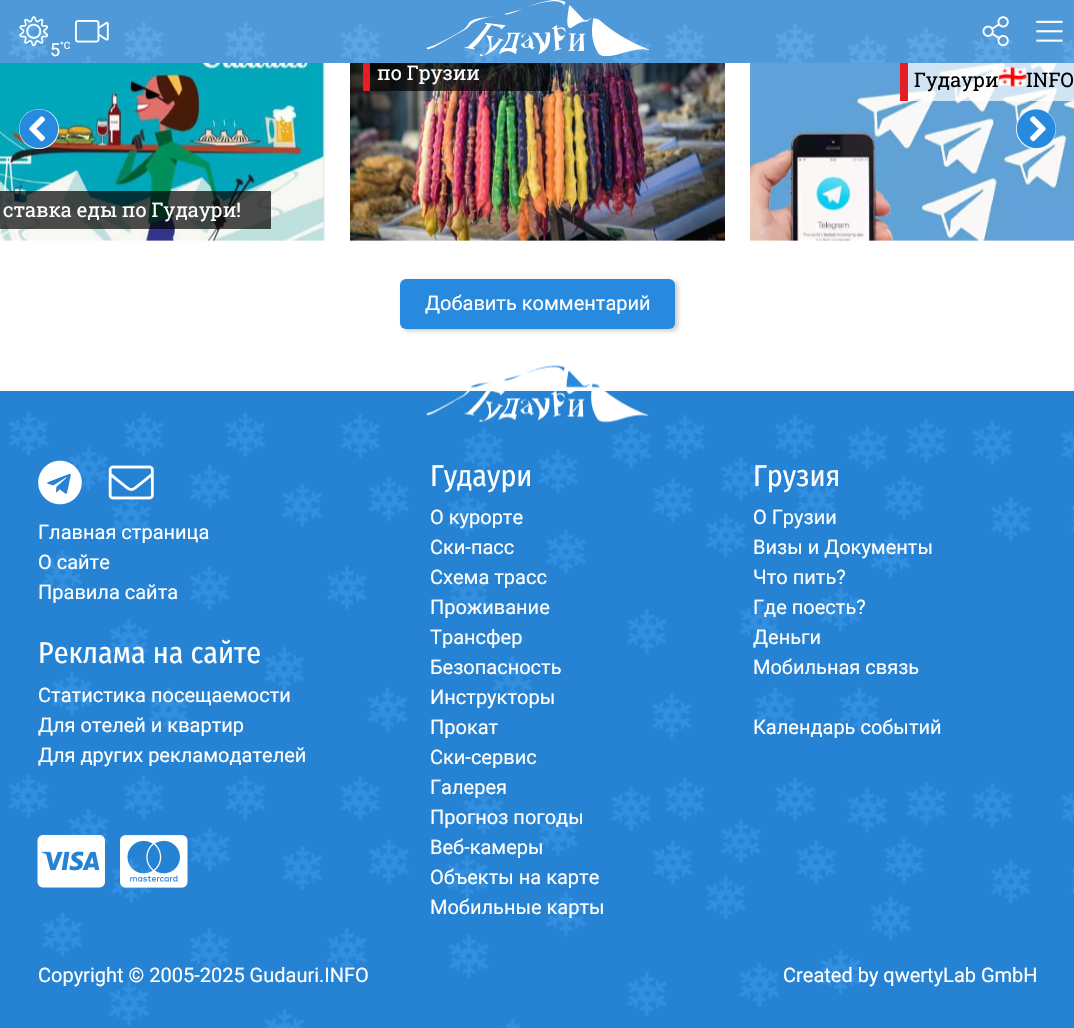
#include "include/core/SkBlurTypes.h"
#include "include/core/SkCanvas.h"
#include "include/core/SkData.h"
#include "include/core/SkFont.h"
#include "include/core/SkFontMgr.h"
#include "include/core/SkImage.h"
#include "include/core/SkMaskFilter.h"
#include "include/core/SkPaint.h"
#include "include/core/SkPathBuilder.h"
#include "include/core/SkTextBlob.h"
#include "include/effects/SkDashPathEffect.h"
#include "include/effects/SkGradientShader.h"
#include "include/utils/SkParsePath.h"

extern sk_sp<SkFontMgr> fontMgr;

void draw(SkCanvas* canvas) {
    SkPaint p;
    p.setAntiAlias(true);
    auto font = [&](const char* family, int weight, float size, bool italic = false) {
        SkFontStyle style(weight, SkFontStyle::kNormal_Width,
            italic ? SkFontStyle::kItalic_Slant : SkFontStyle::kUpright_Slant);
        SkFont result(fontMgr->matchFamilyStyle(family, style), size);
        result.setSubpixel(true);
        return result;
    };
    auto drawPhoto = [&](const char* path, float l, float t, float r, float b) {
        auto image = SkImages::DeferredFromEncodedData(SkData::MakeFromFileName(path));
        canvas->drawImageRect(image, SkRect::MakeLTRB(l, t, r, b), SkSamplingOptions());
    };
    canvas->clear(0xFFFFFFFF);
    p.setColor(0xFF53A1E5);
    canvas->drawRect(SkRect::MakeLTRB(0, 0, 1074, 63), p);
    drawPhoto("media/1.png", 0, 0, 1074, 63);
    drawPhoto("media/2.png", 426, 0, 649, 56);
    drawPhoto("media/3.png", 982, 16, 1009, 47);
    drawPhoto("media/4.png", 1036, 20, 1063, 42);
    drawPhoto("media/5.png", 75, 20, 109, 43);
    drawPhoto("media/6.png", 19, 16, 49, 47);
    auto font1 = font("Roboto", 400, 18);
    p.setColor(0xFFFFFFFF);
    canvas->drawString("5", 50, 56, font1, p);
    auto font2 = font("Roboto", 400, 10);
    canvas->drawString("°C", 60, 49, font2, p);
    drawPhoto("media/7.png", 350, 63, 725, 241);
    p.setColor(0xFFE31E24);
    canvas->drawRect(SkRect::MakeLTRB(363, 63, 370, 91), p);
    p.setColor(0xB3000000);
    canvas->drawRect(SkRect::MakeLTRB(370, 63, 550, 91), p);
    auto font3 = font("Roboto Slab", 400, 20);
    p.setColor(0xFFFFFFFF);
    canvas->drawString("по Грузии", 377, 80, font3, p);
    drawPhoto("media/8.png", 750, 63, 1074, 241);
    p.setColor(0xFFE31E24);
    canvas->drawRect(SkRect::MakeLTRB(900, 63, 908, 101), p);
    p.setColor(0xB3FFFFFF);
    canvas->drawRect(SkRect::MakeLTRB(908, 63, 1074, 101), p);
    p.setColor(0xFF000000);
    canvas->drawString("Гудаури", 914, 87, font3, p);
    drawPhoto("media/9.png", 998, 66, 1027, 88);
    canvas->drawString("INFO", 1026, 87, font3, p);
    drawPhoto("media/10.png", 0, 63, 325, 241);
    p.setColor(0xB3000000);
    canvas->drawRect(SkRect::MakeLTRB(0, 191, 271, 229), p);
    p.setColor(0xFFFFFFFF);
    canvas->drawString("ставка еды по Гудаури!", 3, 217, font3, p);
    canvas->drawCircle(39, 129, 20, p);
    drawPhoto("media/11.png", 19, 109, 59, 149);
    canvas->drawCircle(1036, 129, 20, p);
    drawPhoto("media/12.png", 1016, 109, 1056, 149);
    p.setColor(0x33000000);
    p.setMaskFilter(SkMaskFilter::MakeBlur(kNormal_SkBlurStyle, 2));
    canvas->drawRoundRect(SkRect::MakeLTRB(403, 281, 678, 331), 6, 6, p);
    p.setMaskFilter(nullptr);
    p.setColor(0xFF288ADF);
    canvas->drawRoundRect(SkRect::MakeLTRB(400, 279, 675, 329), 6, 6, p);
    auto font4 = font("Roboto", 400, 20);
    p.setColor(0xFFFFFFFF);
    canvas->drawString("Добавить комментарий", 425, 310, font4, p);
    p.setColor(0xFF288ADF);
    canvas->drawRect(SkRect::MakeLTRB(0, 391, 1074, 1028), p);
    drawPhoto("media/13.png", 0, 391, 1074, 1028);
    drawPhoto("media/14.png", 426, 365, 649, 423);
    drawPhoto("media/15.png", 38, 460, 82, 505);
    drawPhoto("media/16.png", 108, 465, 154, 500);
    drawPhoto("media/17.png", 37, 835, 105, 888);
    drawPhoto("media/18.png", 120, 835, 188, 888);
    auto font5 = font("Fira Sans Condensed", 400, 30);
    p.setColor(0xFFFFFFFF);
    canvas->drawString("Гудаури", 430, 486, font5, p);
    {
        const struct { const char* s; float x, y; } items[] = {
            {"О курорте", 430, 524},
            {"Ски-пасс", 430, 554},
            {"Схема трасс", 430, 584},
            {"Проживание", 430, 614},
            {"Трансфер", 430, 644},
            {"Безопасность", 430, 674},
            {"Инструкторы", 430, 704},
            {"Прокат", 430, 734},
            {"Ски-сервис", 430, 764},
            {"Галерея", 430, 794},
            {"Прогноз погоды", 430, 824},
            {"Веб-камеры", 430, 854},
            {"Объекты на карте", 430, 884},
            {"Мобильные карты", 430, 914},
        };
        for (auto [s, x, y] : items) {
            canvas->drawString(s, x, y, font4, p);
        }
    }
    canvas->drawString("Грузия", 753, 486, font5, p);
    {
        const struct { const char* s; float x, y; } items[] = {
            {"О Грузии", 753, 524},
            {"Визы и Документы", 753, 554},
            {"Что пить?", 753, 584},
            {"Где поесть?", 753, 614},
            {"Деньги", 753, 644},
            {"Мобильная связь", 753, 674},
            {"Календарь событий", 753, 734},
            {"Главная страница", 38, 539},
            {"О сайте", 38, 569},
            {"Правила сайта", 38, 599},
        };
        for (auto [s, x, y] : items) {
            canvas->drawString(s, x, y, font4, p);
        }
    }
    canvas->drawString("Реклама на сайте", 38, 663, font5, p);
    {
        const struct { const char* s; float x, y; } items[] = {
            {"Статистика посещаемости", 38, 702},
            {"Для отелей и квартир", 38, 732},
            {"Для других рекламодателей", 38, 762},
            {"Copyright © 2005-2025 Gudauri.INFO", 38, 982},
            {"Created by qwertyLab GmbH", 783, 982},
        };
        for (auto [s, x, y] : items) {
            canvas->drawString(s, x, y, font4, p);
        }
    }
}
